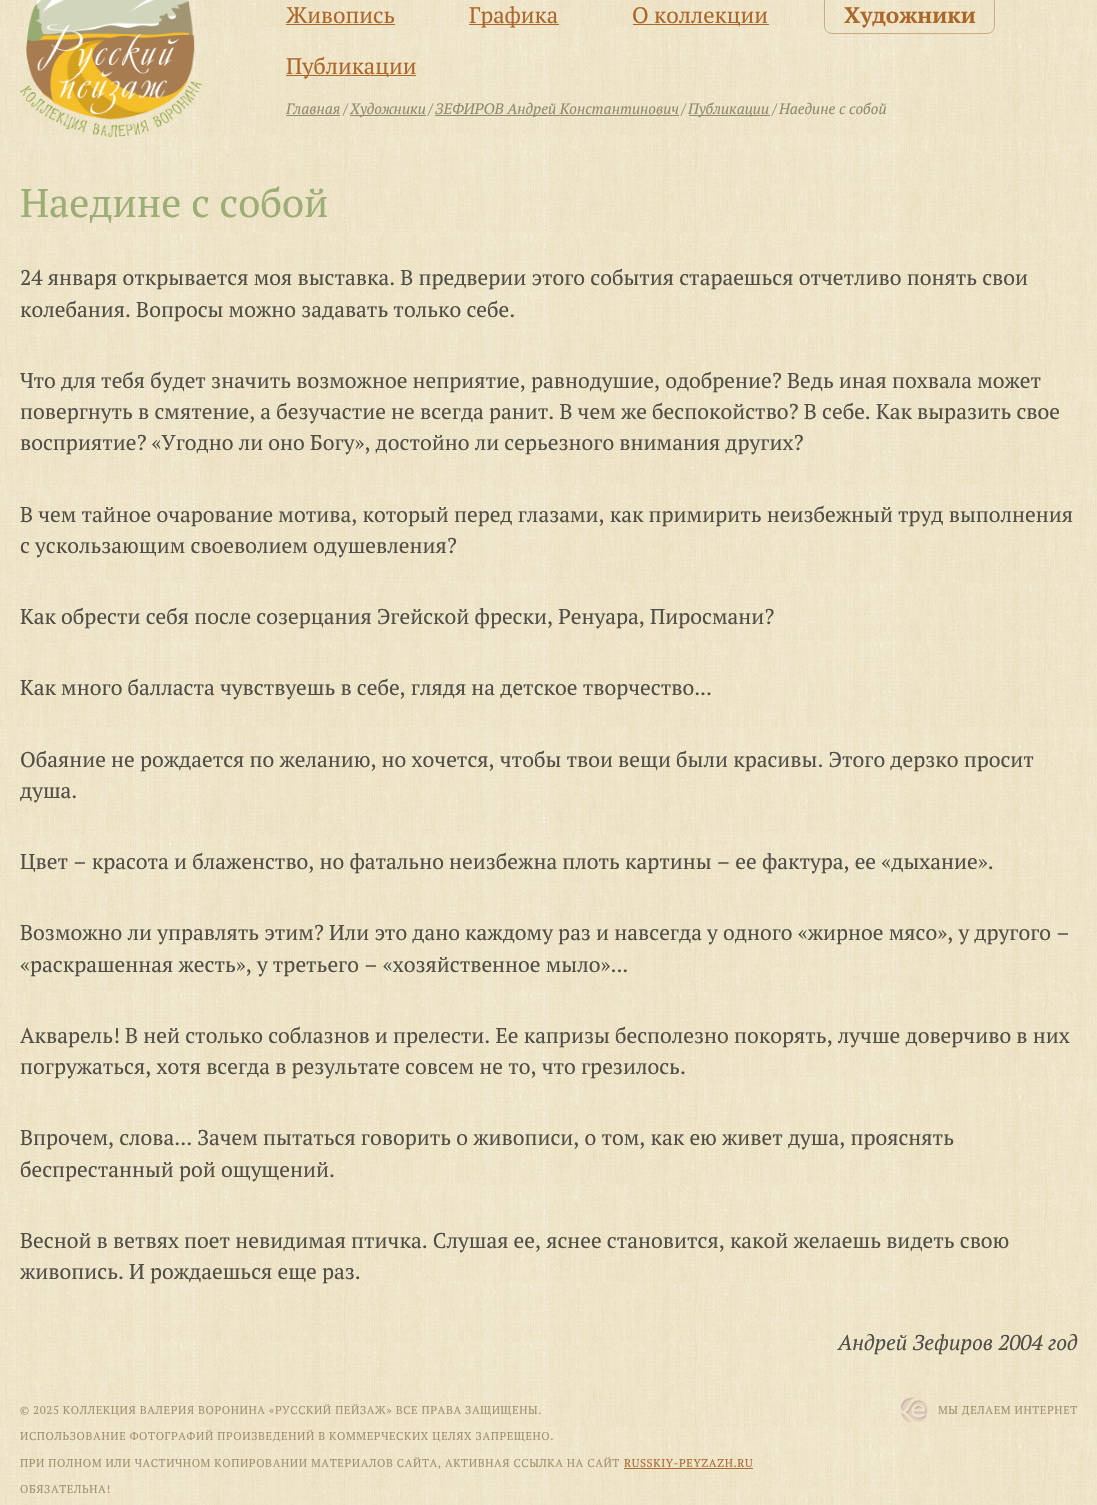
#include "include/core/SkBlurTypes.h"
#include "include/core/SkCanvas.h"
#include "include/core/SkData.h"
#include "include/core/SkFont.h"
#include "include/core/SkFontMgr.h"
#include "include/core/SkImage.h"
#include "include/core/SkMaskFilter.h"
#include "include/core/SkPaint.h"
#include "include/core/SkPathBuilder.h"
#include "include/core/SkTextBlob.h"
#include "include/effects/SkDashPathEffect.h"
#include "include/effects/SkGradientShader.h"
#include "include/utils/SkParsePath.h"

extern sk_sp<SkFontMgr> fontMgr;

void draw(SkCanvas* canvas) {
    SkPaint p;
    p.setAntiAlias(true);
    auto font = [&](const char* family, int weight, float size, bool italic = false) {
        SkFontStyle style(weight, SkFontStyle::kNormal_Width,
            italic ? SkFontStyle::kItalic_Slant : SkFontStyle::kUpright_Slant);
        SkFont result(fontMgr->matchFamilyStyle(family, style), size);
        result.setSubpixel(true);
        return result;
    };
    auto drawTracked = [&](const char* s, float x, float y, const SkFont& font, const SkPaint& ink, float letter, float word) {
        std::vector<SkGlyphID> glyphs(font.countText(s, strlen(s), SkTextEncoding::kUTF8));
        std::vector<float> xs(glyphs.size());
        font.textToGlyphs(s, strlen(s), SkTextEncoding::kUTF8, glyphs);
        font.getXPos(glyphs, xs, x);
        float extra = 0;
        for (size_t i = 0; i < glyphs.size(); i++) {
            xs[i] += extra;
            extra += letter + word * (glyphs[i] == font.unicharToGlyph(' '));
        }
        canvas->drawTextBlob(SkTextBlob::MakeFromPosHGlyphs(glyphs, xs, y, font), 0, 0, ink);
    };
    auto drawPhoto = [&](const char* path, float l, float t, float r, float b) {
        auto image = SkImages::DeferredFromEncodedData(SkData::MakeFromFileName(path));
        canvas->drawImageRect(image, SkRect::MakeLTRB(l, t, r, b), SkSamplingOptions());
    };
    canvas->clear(0xFFFFFFFF);
    drawPhoto("media/1.png", 0, 0, 1097, 1505);
    drawPhoto("media/2.png", 20, 0, 202, 137);
    auto font1 = font("PT Serif", 400, 22.5f);
    p.setColor(0xFFAD662A);
    canvas->drawString("Живопись", 286, 23, font1, p);
    p.setColor(0xF0A95E20);
    canvas->drawRect(SkRect::MakeLTRB(286, 24, 395, 25), p);
    canvas->drawRect(SkRect::MakeLTRB(469, 24, 559, 25), p);
    p.setColor(0xFFAD662A);
    canvas->drawString("Графика", 469, 23, font1, p);
    p.setColor(0xF0A95E20);
    canvas->drawRect(SkRect::MakeLTRB(633, 24, 769, 25), p);
    p.setColor(0xFFAD662A);
    canvas->drawString("О коллекции", 632, 23, font1, p);
    p.setStyle(SkPaint::kStroke_Style);
    p.setStrokeWidth(1);
    p.setColor(0xFFC7AB87);
    canvas->drawRoundRect(SkRect::MakeLTRB(824.5f, -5.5f, 994.5f, 33.5f), 7.5f, 7.5f, p);
    auto font2 = font("PT Serif", 700, 22.5f);
    p.setStyle(SkPaint::kFill_Style);
    p.setColor(0xFFAD662A);
    canvas->drawString("Художники", 844, 23, font2, p);
    p.setColor(0xF0A95E20);
    canvas->drawRect(SkRect::MakeLTRB(286, 75, 416, 76), p);
    p.setColor(0xFFAD662A);
    canvas->drawString("Публикации", 286, 74, font1, p);
    auto font3 = font("PT Serif", 400, 15, true);
    p.setColor(0xFF908A6F);
    canvas->drawString("Главная", 286, 114, font3, p);
    canvas->drawRect(SkRect::MakeLTRB(286, 115, 340, 116), p);
    canvas->drawString("/", 343, 114, font3, p);
    canvas->drawRect(SkRect::MakeLTRB(350, 115, 426, 116), p);
    canvas->drawString("Художники", 350, 114, font3, p);
    canvas->drawString("/", 428, 114, font3, p);
    canvas->drawRect(SkRect::MakeLTRB(435, 115, 679, 116), p);
    canvas->drawString("ЗЕФИРОВ Андрей Константинович", 435, 114, font3, p);
    canvas->drawString("/", 681, 114, font3, p);
    canvas->drawRect(SkRect::MakeLTRB(689, 115, 770, 116), p);
    {
        const struct { const char* s; float x, y; } items[] = {
            {"Публикации", 688, 114},
            {"/", 772, 114},
            {"Наедине с собой", 779, 114},
        };
        for (auto [s, x, y] : items) {
            canvas->drawString(s, x, y, font3, p);
        }
    }
    auto font4 = font("PT Serif", 400, 40);
    p.setColor(0xFF9CAD75);
    canvas->drawString("Наедине с собой", 20, 217, font4, p);
    auto font5 = font("PT Serif", 400, 21.25f);
    p.setColor(0xFF514E46);
    {
        const struct { const char* s; float x, y; } items[] = {
            {"24 января открывается моя выставка. В предверии этого события стараешься отчетливо понять свои", 20, 285},
            {"колебания. Вопросы можно задавать только себе.", 20, 317},
            {"Что для тебя будет значить возможное неприятие, равнодушие, одобрение? Ведь иная похвала может", 20, 388},
            {"повергнуть в смятение, а безучастие не всегда ранит. В чем же беспокойство? В себе. Как выразить свое", 20, 419},
            {"восприятие? «Угодно ли оно Богу», достойно ли серьезного внимания других?", 20, 450},
            {"В чем тайное очарование мотива, который перед глазами, как примирить неизбежный труд выполнения", 20, 522},
            {"с ускользающим своеволием одушевления?", 20, 553},
            {"Как обрести себя после созерцания Эгейской фрески, Ренуара, Пиросмани?", 20, 624},
            {"Как много балласта чувствуешь в себе, глядя на детское творчество...", 20, 695},
            {"Обаяние не рождается по желанию, но хочется, чтобы твои вещи были красивы. Этого дерзко просит", 20, 767},
            {"душа.", 20, 798},
            {"Цвет – красота и блаженство, но фатально неизбежна плоть картины – ее фактура, ее «дыхание».", 20, 869},
            {"Возможно ли управлять этим? Или это дано каждому раз и навсегда у одного «жирное мясо», у другого –", 20, 940},
            {"«раскрашенная жесть», у третьего – «хозяйственное мыло»...", 20, 972},
            {"Акварель! В ней столько соблазнов и прелести. Ее капризы бесполезно покорять, лучше доверчиво в них", 20, 1043},
            {"погружаться, хотя всегда в результате совсем не то, что грезилось.", 20, 1074},
            {"Впрочем, слова... Зачем пытаться говорить о живописи, о том, как ею живет душа, прояснять", 20, 1145},
            {"беспрестанный рой ощущений.", 20, 1177},
            {"Весной в ветвях поет невидимая птичка. Слушая ее, яснее становится, какой желаешь видеть свою", 20, 1248},
            {"живопись. И рождаешься еще раз.", 20, 1279},
        };
        for (auto [s, x, y] : items) {
            canvas->drawString(s, x, y, font5, p);
        }
    }
    auto font6 = font("PT Serif", 400, 21.25f, true);
    canvas->drawString("Андрей Зефиров 2004 год", 838, 1350, font6, p);
    auto font7 = font("PT Serif", 400, 11.25f);
    p.setColor(0xFFA19170);
    {
        const struct { const char* s; float x, y; } items[] = {
            {"© 2025 КОЛЛЕКЦИЯ ВАЛЕРИЯ ВОРОНИНА «РУССКИЙ ПЕЙЗАЖ» ВСЕ ПРАВА ЗАЩИЩЕНЫ.", 20, 1414},
            {"ИСПОЛЬЗОВАНИЕ ФОТОГРАФИЙ ПРОИЗВЕДЕНИЙ В КОММЕРЧЕСКИХ ЦЕЛЯХ ЗАПРЕЩЕНО.", 20, 1440},
            {"ПРИ ПОЛНОМ ИЛИ ЧАСТИЧНОМ КОПИРОВАНИИ МАТЕРИАЛОВ САЙТА, АКТИВНАЯ ССЫЛКА НА САЙТ", 20, 1467},
        };
        for (auto [s, x, y] : items) {
            drawTracked(s, x, y, font7, p, 0.62f, 0);
        }
    }
    p.setColor(0xFFAE6A34);
    drawTracked("RUSSKIY-PEYZAZH.RU", 624, 1467, font7, p, 0.62f, 0);
    canvas->drawRect(SkRect::MakeLTRB(624, 1468, 753, 1469), p);
    p.setColor(0xFFA19170);
    drawTracked("ОБЯЗАТЕЛЬНА!", 20, 1493, font7, p, 0.62f, 0);
    drawPhoto("media/3.png", 901, 1397, 928, 1423);
    drawTracked("МЫ ДЕЛАЕМ ИНТЕРНЕТ", 938, 1414, font7, p, 0.62f, 0);
}
